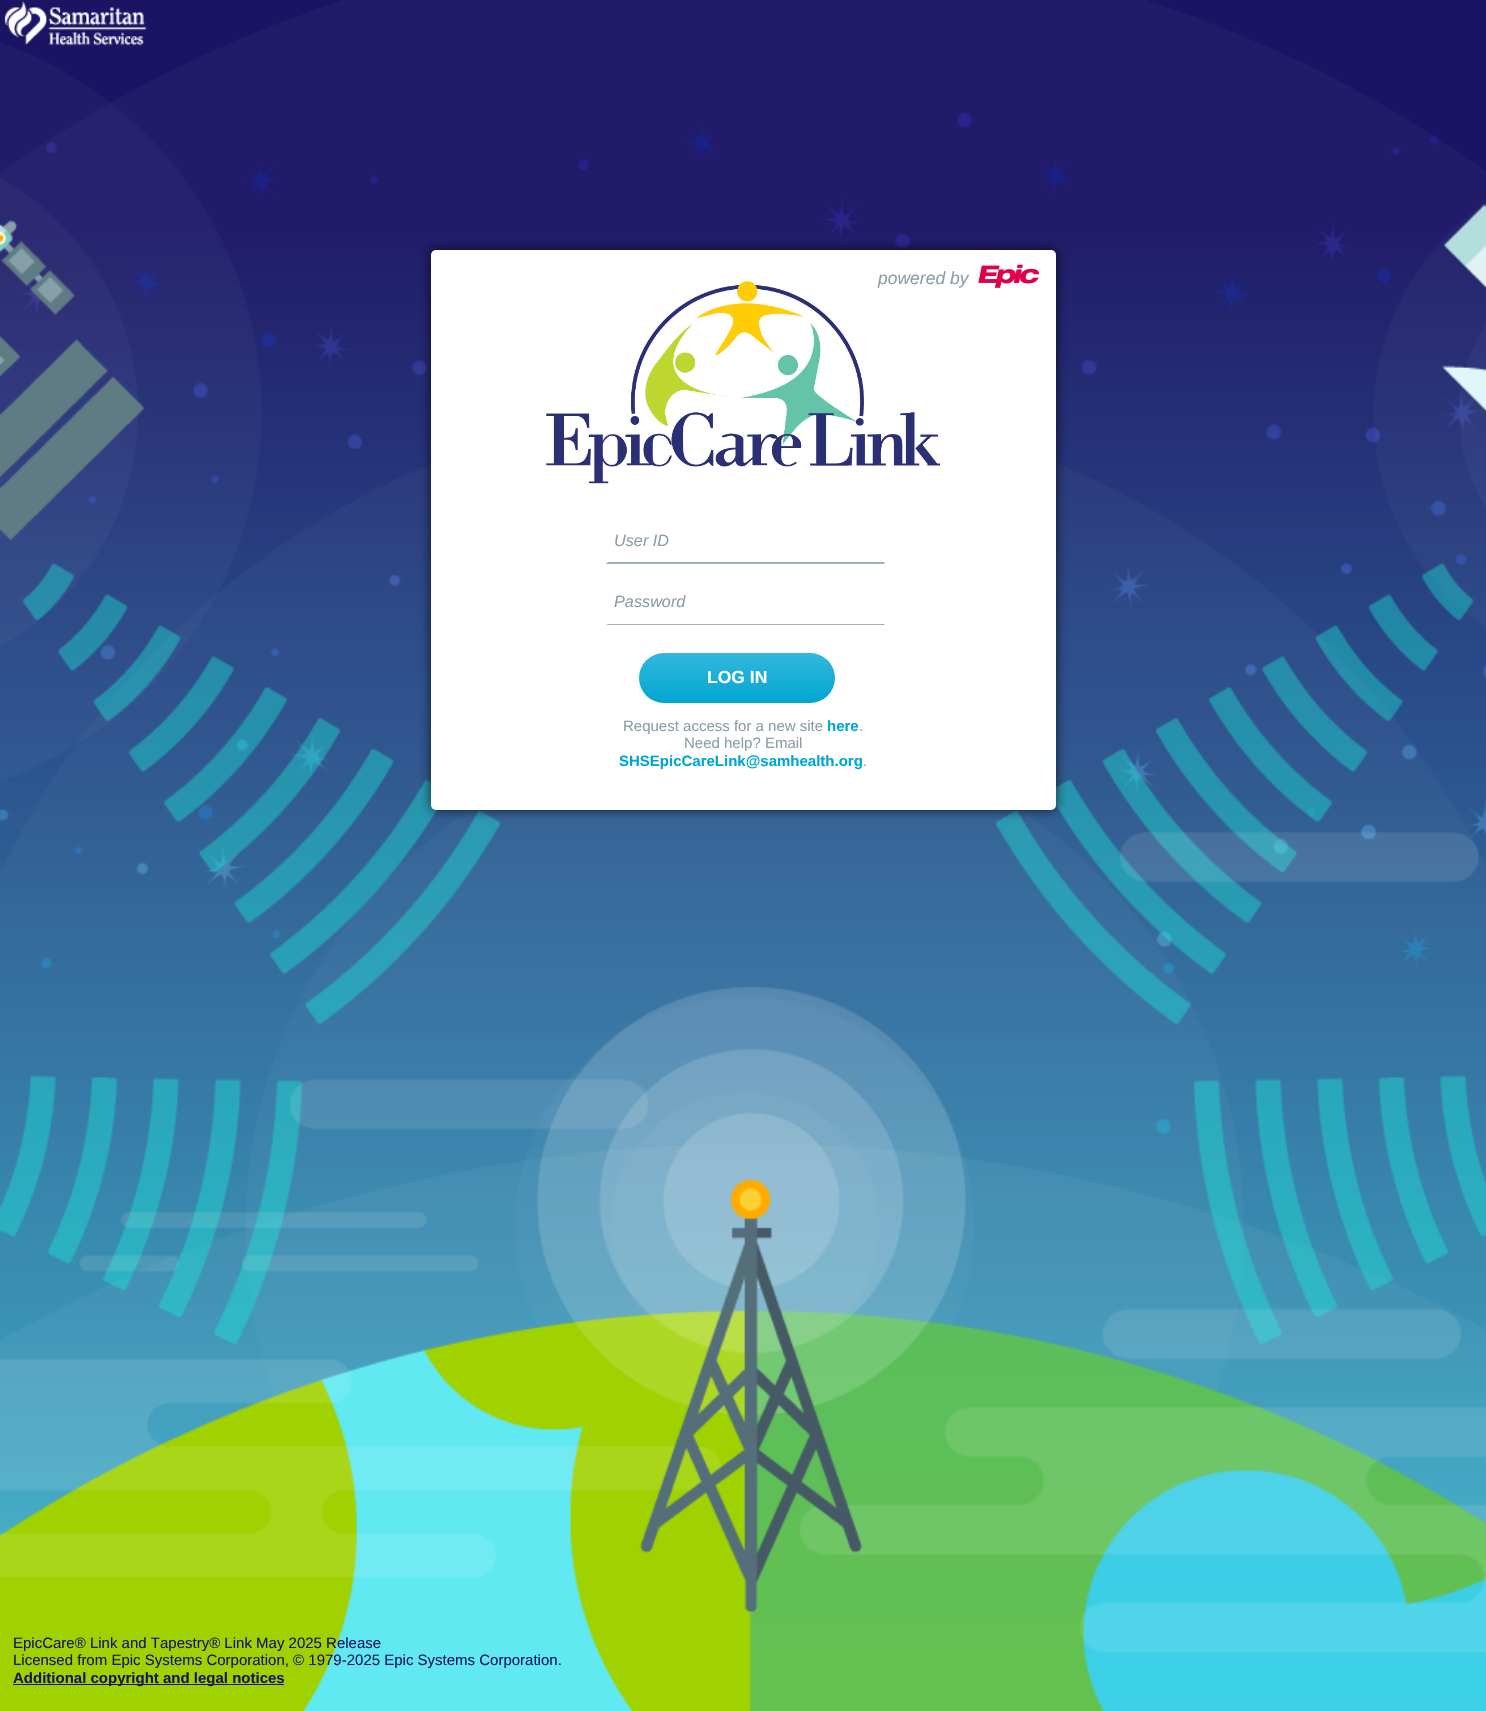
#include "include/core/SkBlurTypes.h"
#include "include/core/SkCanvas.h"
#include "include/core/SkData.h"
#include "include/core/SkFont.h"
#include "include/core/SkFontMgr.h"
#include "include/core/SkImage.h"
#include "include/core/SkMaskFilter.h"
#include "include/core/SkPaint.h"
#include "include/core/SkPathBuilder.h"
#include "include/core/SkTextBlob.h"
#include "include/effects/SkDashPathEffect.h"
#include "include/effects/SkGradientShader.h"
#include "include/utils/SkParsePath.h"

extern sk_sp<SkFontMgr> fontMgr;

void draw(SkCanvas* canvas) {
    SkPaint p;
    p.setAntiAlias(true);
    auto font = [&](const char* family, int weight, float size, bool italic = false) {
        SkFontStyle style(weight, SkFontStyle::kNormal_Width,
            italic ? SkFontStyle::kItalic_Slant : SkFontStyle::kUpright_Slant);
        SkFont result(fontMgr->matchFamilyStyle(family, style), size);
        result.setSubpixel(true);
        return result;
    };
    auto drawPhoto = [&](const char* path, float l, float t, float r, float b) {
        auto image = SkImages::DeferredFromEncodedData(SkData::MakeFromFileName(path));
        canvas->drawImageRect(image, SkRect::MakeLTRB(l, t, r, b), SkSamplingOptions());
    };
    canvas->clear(0xFFFFFFFF);
    drawPhoto("media/1.png", 0, 0, 1486, 1711);
    drawPhoto("media/2.png", 4, 1, 147, 46);
    p.setColor(0xB3000000);
    p.setMaskFilter(SkMaskFilter::MakeBlur(kNormal_SkBlurStyle, 6));
    canvas->drawRoundRect(SkRect::MakeLTRB(431, 250, 1056, 810), 5, 5, p);
    p.setMaskFilter(nullptr);
    p.setColor(0xFFFFFFFF);
    canvas->drawRoundRect(SkRect::MakeLTRB(431, 250, 1056, 810), 5, 5, p);
    drawPhoto("media/4.png", 546, 281, 940, 484);
    auto font1 = font("Liberation Sans", 400, 17.5f, true);
    p.setColor(0xFF899EA8);
    canvas->drawString("powered by", 878, 284, font1, p);
    drawPhoto("media/3.png", 978, 264, 1040, 288);
    p.setColor(0xFFA1B1B9);
    canvas->drawPath(SkPathBuilder().moveTo(885, 564).lineTo(606, 564).lineTo(608, 562).lineTo(884, 562).close().detach(), p);
    auto font2 = font("Liberation Sans", 400, 16.25f, true);
    p.setColor(0xFF899EA8);
    canvas->drawString("User ID", 614, 546, font2, p);
    p.setColor(0xFFA1B1B9);
    canvas->drawPath(SkPathBuilder().moveTo(885, 625).lineTo(606, 625).lineTo(608, 624).lineTo(884, 624).close().detach(), p);
    p.setColor(0xFF899EA8);
    canvas->drawString("Password", 614, 607, font2, p);
    p.setColor(0xFF00A6D3);
    canvas->drawRoundRect(SkRect::MakeLTRB(639, 653, 835, 703), 25, 25, p);
    {
        const SkColor colors[] = {0x33FFFFFF, 0x00FFFFFF};
        const float stops[] = {0, 1};
        const SkPoint ends[] = {{737, 653}, {737, 703}};
        p.setShader(SkGradientShader::MakeLinear(ends, colors, stops, 2, SkTileMode::kClamp));
        p.setAlpha(255);
    }
    canvas->drawRoundRect(SkRect::MakeLTRB(639, 653, 835, 703), 25, 25, p);
    auto font3 = font("Liberation Sans", 700, 17.5f);
    p.setShader(nullptr);
    p.setColor(0xFFFFFFFF);
    canvas->drawString("LOG IN", 707, 683, font3, p);
    auto font4 = font("Liberation Sans", 400, 15);
    p.setColor(0xFF899EA8);
    canvas->drawString("Request access for a new site", 623, 731, font4, p);
    auto font5 = font("Liberation Sans", 700, 15);
    p.setColor(0xFF00A6D3);
    canvas->drawString("here", 827, 731, font5, p);
    p.setColor(0xFF899EA8);
    canvas->drawString(".", 859, 731, font4, p);
    canvas->drawString("Need help? Email", 684, 748, font4, p);
    p.setColor(0xFF00A6D3);
    canvas->drawString("SHSEpicCareLink@samhealth.org", 619, 766, font5, p);
    p.setColor(0xFF899EA8);
    canvas->drawString(".", 863, 766, font4, p);
    p.setColor(0xFF1B1464);
    canvas->drawString("EpicCare® Link and Tapestry® Link May 2025 Release", 13, 1648, font4, p);
    canvas->drawString("Licensed from Epic Systems Corporation, © 1979-2025 Epic Systems Corporation.", 13, 1665, font4, p);
    canvas->drawRect(SkRect::MakeLTRB(13, 1684, 284, 1685), p);
    canvas->drawString("Additional copyright and legal notices", 13, 1683, font5, p);
}
